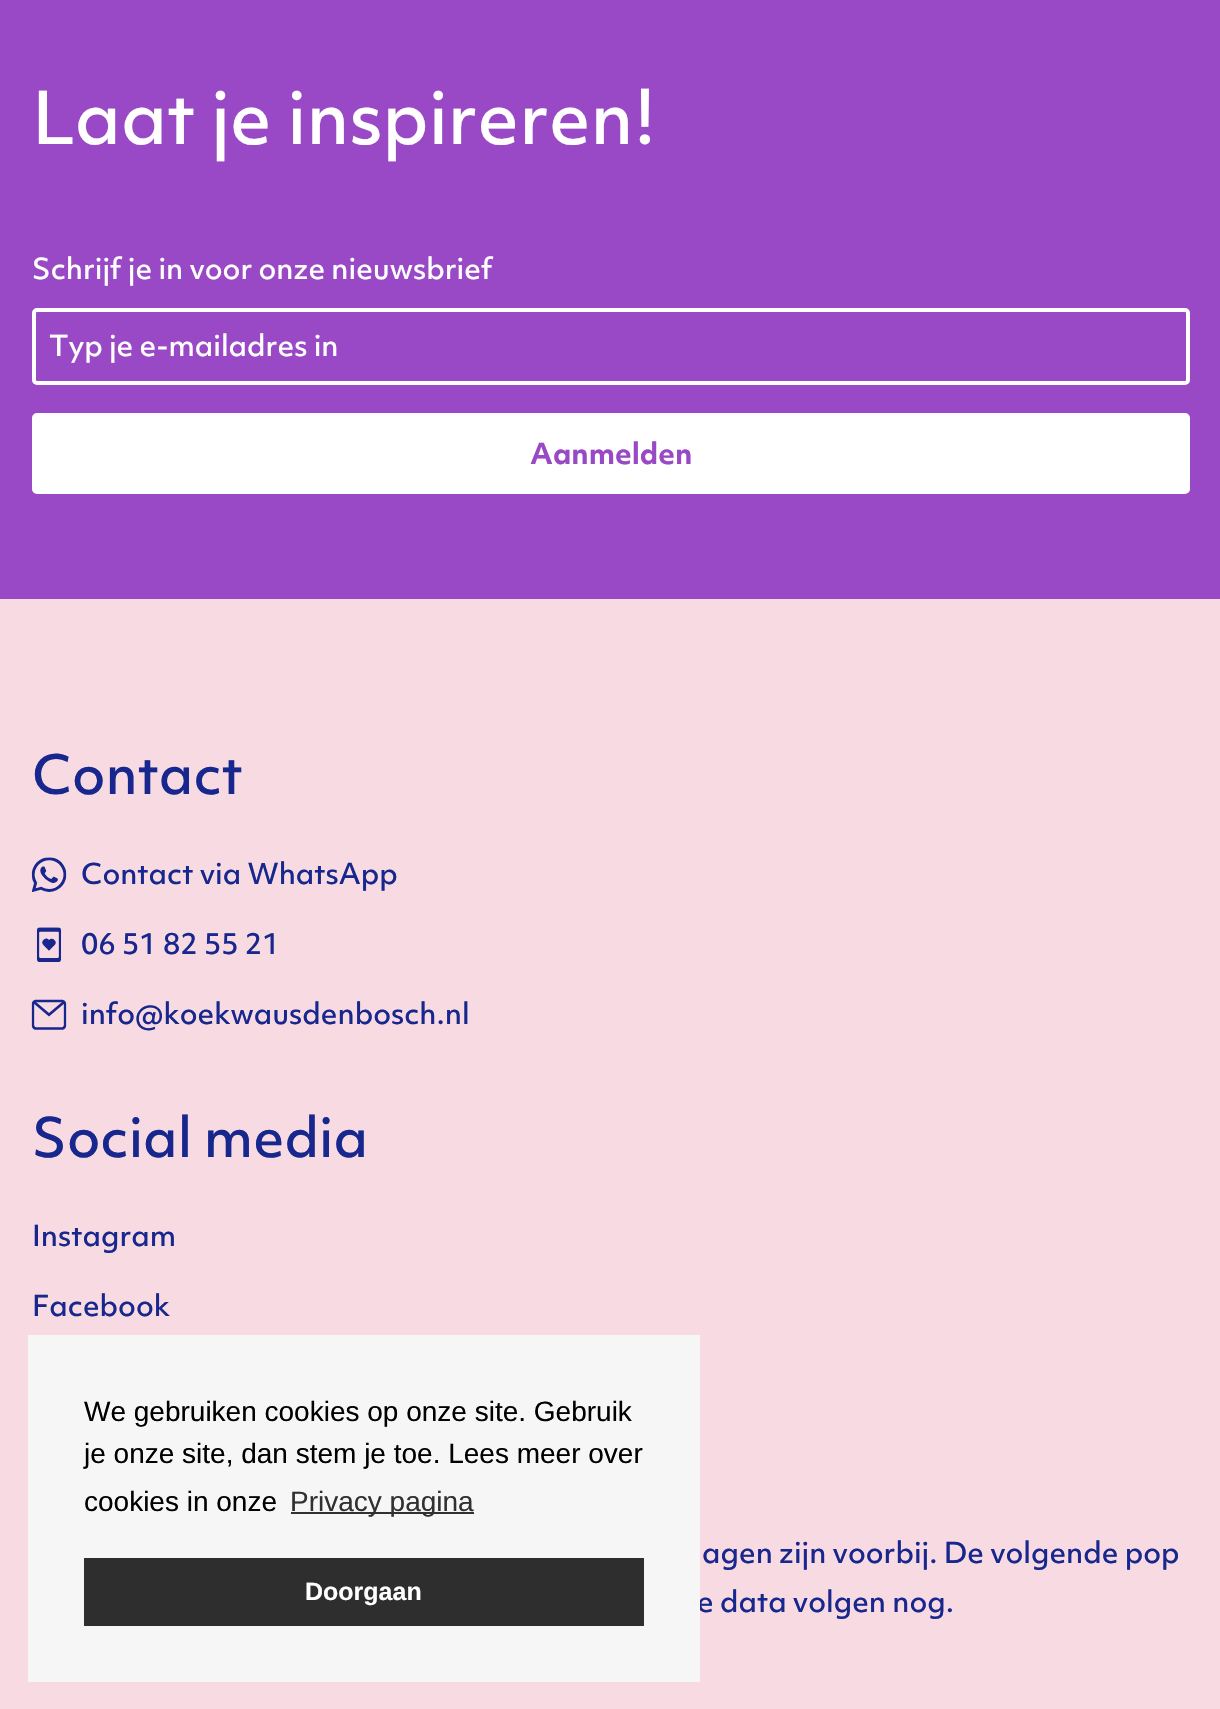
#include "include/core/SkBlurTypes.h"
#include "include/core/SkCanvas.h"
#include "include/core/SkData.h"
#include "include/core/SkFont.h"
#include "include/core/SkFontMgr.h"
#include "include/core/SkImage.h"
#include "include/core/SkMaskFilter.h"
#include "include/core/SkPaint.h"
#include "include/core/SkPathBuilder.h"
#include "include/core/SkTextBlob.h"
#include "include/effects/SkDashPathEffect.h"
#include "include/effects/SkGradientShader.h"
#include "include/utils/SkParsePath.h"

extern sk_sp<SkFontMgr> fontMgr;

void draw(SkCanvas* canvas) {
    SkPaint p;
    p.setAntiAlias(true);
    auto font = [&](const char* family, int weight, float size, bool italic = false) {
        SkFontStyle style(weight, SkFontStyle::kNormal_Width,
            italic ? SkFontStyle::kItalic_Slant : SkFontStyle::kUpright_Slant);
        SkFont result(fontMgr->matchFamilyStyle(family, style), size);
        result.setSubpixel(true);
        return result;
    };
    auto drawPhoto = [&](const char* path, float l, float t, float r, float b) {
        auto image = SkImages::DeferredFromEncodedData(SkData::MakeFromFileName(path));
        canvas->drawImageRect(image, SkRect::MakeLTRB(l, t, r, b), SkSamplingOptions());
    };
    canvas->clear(0xFF9949C5);
    auto font1 = font("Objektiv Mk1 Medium", 500, 70);
    p.setColor(0xFFFFFFFF);
    canvas->drawString("Laat je inspireren!", 32, 144, font1, p);
    auto font2 = font("Objektiv Mk1 Medium", 500, 28);
    canvas->drawString("Schrijf je in voor onze nieuwsbrief", 32, 279, font2, p);
    p.setStyle(SkPaint::kStroke_Style);
    p.setStrokeWidth(4);
    canvas->drawRoundRect(SkRect::MakeLTRB(34, 310, 1188, 383), 3, 3, p);
    p.setStyle(SkPaint::kFill_Style);
    canvas->drawString("Typ je e-mailadres in", 49, 356, font2, p);
    canvas->drawRoundRect(SkRect::MakeLTRB(33, 414, 1189, 493), 4, 4, p);
    p.setStyle(SkPaint::kStroke_Style);
    p.setStrokeWidth(2);
    canvas->drawRoundRect(SkRect::MakeLTRB(33, 414, 1189, 493), 4, 4, p);
    auto font3 = font("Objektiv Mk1", 700, 28);
    p.setStyle(SkPaint::kFill_Style);
    p.setColor(0xFF9949C5);
    canvas->drawString("Aanmelden", 530, 464, font3, p);
    p.setColor(0xFFF8DBE2);
    canvas->drawRect(SkRect::MakeLTRB(0, 599, 1220, 1709), p);
    auto font4 = font("Objektiv Mk1 Medium", 500, 52.5f);
    p.setColor(0xFF17278D);
    canvas->drawString("Contact", 32, 794, font4, p);
    drawPhoto("media/1.png", 31, 857, 67, 892);
    canvas->drawString("Contact via WhatsApp", 81, 884, font2, p);
    drawPhoto("media/2.png", 36, 927, 62, 962);
    canvas->drawString("06 51 82 55 21", 81, 954, font2, p);
    drawPhoto("media/3.png", 31, 999, 67, 1030);
    canvas->drawString("info@koekwausdenbosch.nl", 81, 1024, font2, p);
    canvas->drawString("Social media", 32, 1157, font4, p);
    {
        const struct { const char* s; float x, y; } items[] = {
            {"Instagram", 32, 1246},
            {"Facebook", 32, 1316},
            {"agen zijn voorbij. De volgende pop", 702, 1563},
            {"e data volgen nog.", 697, 1612},
        };
        for (auto [s, x, y] : items) {
            canvas->drawString(s, x, y, font2, p);
        }
    }
    p.setColor(0xFFF6F6F6);
    canvas->drawRect(SkRect::MakeLTRB(28, 1335, 700, 1682), p);
    auto font5 = font("Liberation Sans", 400, 28);
    p.setColor(0xFF000000);
    {
        const struct { const char* s; float x, y; } items[] = {
            {"We gebruiken cookies op onze site. Gebruik", 84, 1421},
            {"je onze site, dan stem je toe. Lees meer over", 84, 1463},
            {"cookies in onze", 84, 1511},
        };
        for (auto [s, x, y] : items) {
            canvas->drawString(s, x, y, font5, p);
        }
    }
    p.setColor(0xFF313131);
    canvas->drawRect(SkRect::MakeLTRB(291, 1512, 474, 1514), p);
    canvas->drawString("Privacy pagina", 290, 1511, font5, p);
    p.setColor(0xFF2E2E2E);
    canvas->drawRect(SkRect::MakeLTRB(84, 1558, 644, 1626), p);
    auto font6 = font("Liberation Sans", 700, 25);
    p.setColor(0xFFFFFFFF);
    canvas->drawString("Doorgaan", 305, 1600, font6, p);
}
